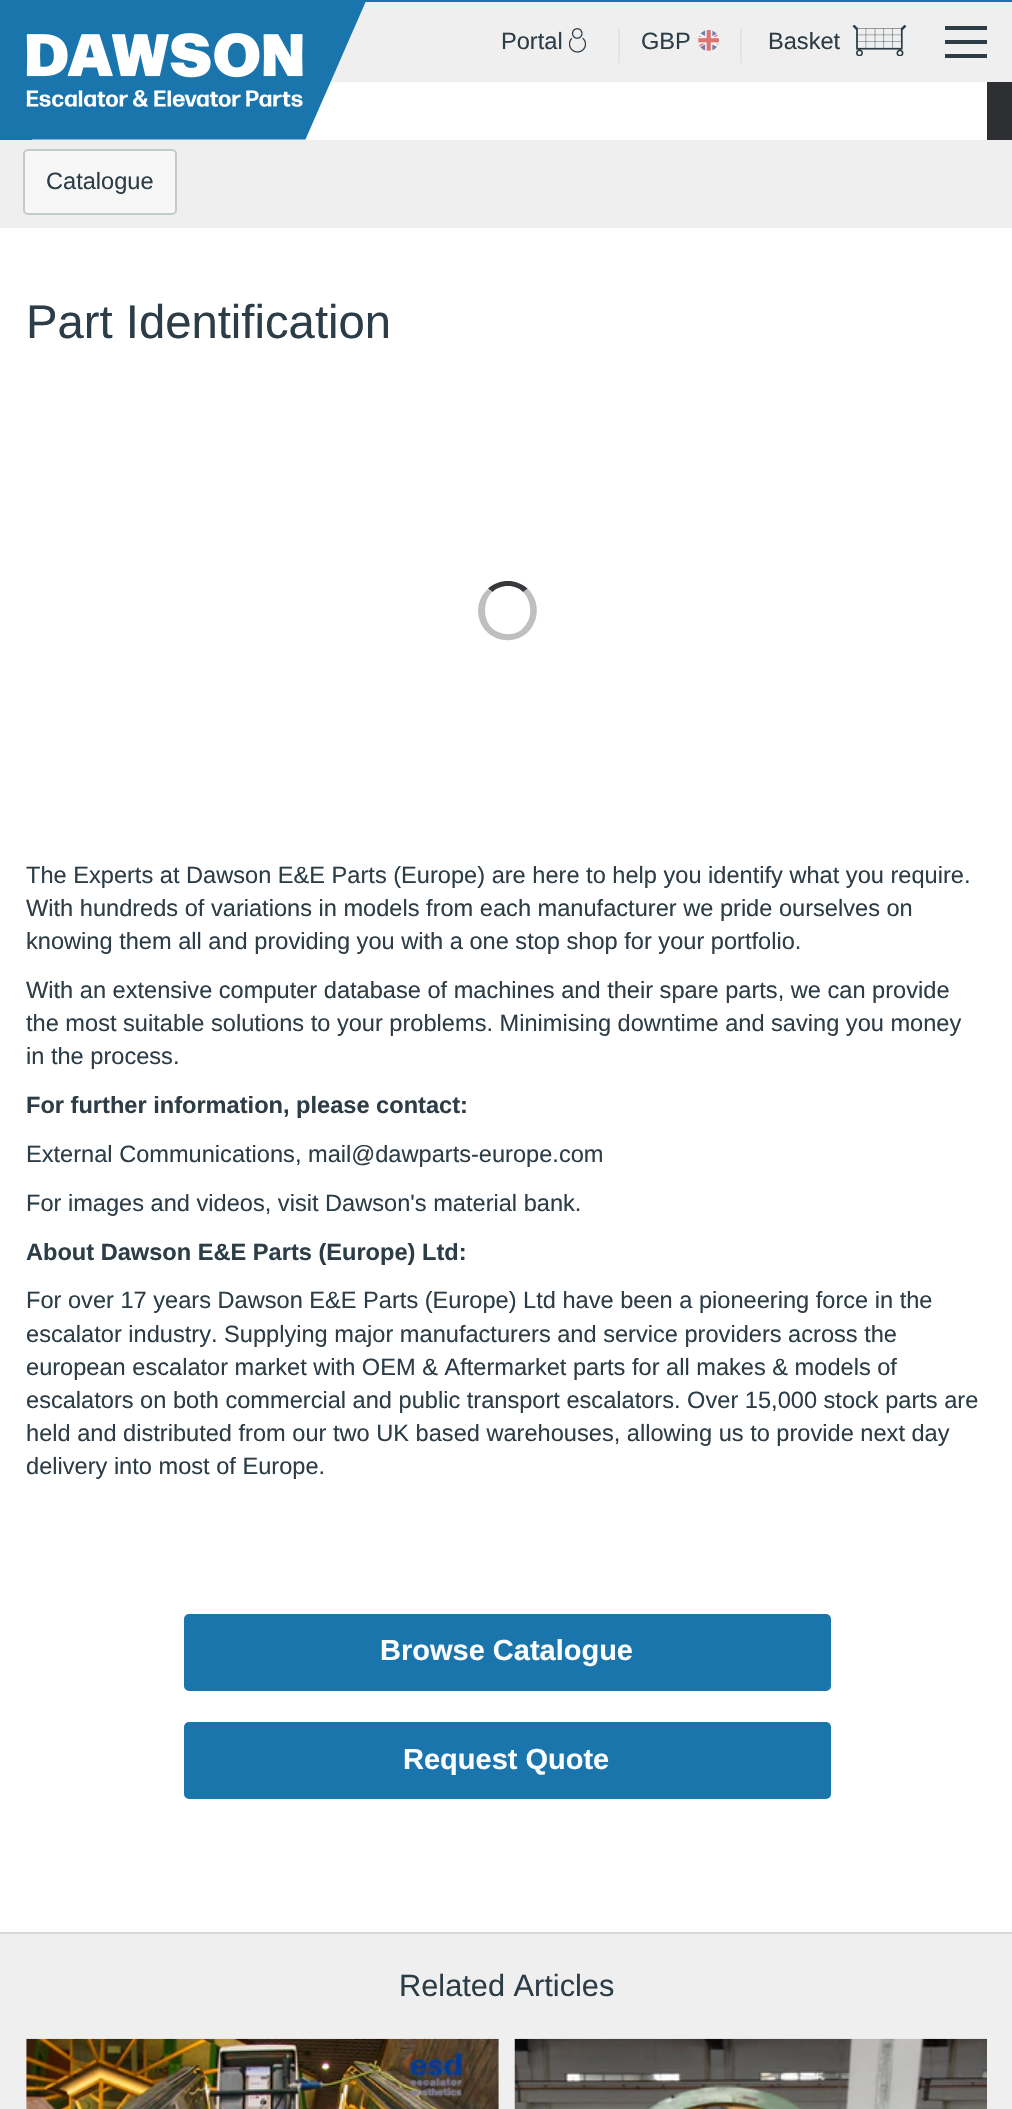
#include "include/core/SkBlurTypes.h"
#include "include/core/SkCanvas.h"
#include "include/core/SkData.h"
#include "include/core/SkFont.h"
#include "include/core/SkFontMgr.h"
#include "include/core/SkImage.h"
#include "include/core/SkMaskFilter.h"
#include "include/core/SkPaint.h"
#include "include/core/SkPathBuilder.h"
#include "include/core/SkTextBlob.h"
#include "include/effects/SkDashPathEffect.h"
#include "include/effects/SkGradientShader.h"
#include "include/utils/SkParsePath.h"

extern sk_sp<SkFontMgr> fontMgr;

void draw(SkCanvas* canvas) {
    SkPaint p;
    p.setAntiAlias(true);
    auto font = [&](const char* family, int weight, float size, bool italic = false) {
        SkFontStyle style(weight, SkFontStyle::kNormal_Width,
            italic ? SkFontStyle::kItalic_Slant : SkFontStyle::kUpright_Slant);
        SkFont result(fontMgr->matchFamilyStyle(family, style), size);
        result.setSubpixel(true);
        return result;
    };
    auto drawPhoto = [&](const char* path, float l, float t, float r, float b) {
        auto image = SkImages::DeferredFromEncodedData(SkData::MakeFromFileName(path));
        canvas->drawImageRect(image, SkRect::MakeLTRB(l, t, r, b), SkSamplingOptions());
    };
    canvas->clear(0xFFEFEFEF);
    {
        const struct { float l, t, r, b; SkColor color; } items[] = {
            {987, 82, 1012, 140, 0xFF2D2F33},
            {0, 0, 1012, 2, 0xFF1A75AD},
            {32, 82, 987, 140, 0xFFFFFFFF},
            {0, 2, 32, 140, 0xFF1A75AD},
        };
        for (auto [l, t, r, b, color] : items) {
            p.setColor(color);
            canvas->drawRect(SkRect::MakeLTRB(l, t, r, b), p);
        }
    }
    drawPhoto("media/1.png", 26, 2, 366, 140);
    auto font1 = font("Liberation Sans", 400, 23.6f);
    p.setColor(0xFF2C3D47);
    canvas->drawString("Portal", 501, 49, font1, p);
    drawPhoto("media/2.png", 569, 28, 586, 53);
    p.setColor(0xFFE3E4E5);
    canvas->drawRect(SkRect::MakeLTRB(618, 28, 620, 63), p);
    p.setColor(0xFF2C3D47);
    canvas->drawString("GBP", 641, 49, font1, p);
    drawPhoto("media/3.png", 698, 30, 719, 51);
    p.setColor(0xFFE3E4E5);
    canvas->drawRect(SkRect::MakeLTRB(740, 28, 742, 63), p);
    p.setColor(0xFF2C3D47);
    canvas->drawString("Basket", 768, 49, font1, p);
    drawPhoto("media/4.png", 852, 25, 907, 56);
    {
        const struct { float l, t, r, b; SkColor color; } items[] = {
            {945, 26, 987, 30, 0xFF2C3D47},
            {945, 40, 987, 44, 0xFF2C3D47},
            {945, 54, 987, 58, 0xFF2C3D47},
        };
        for (auto [l, t, r, b, color] : items) {
            p.setColor(color);
            canvas->drawRect(SkRect::MakeLTRB(l, t, r, b), p);
        }
    }
    p.setColor(0xFFF7F7F7);
    canvas->drawRoundRect(SkRect::MakeLTRB(24, 150, 176, 214), 4, 4, p);
    p.setStyle(SkPaint::kStroke_Style);
    p.setStrokeWidth(2);
    p.setColor(0xFFC2CACC);
    canvas->drawRoundRect(SkRect::MakeLTRB(24, 150, 176, 214), 4, 4, p);
    p.setStyle(SkPaint::kFill_Style);
    p.setColor(0xFF2C3D47);
    canvas->drawString("Catalogue", 46, 189, font1, p);
    p.setColor(0xFFFFFFFF);
    canvas->drawRect(SkRect::MakeLTRB(0, 228, 1012, 1932), p);
    auto font2 = font("Liberation Sans", 400, 47.25f);
    p.setColor(0xFF2C3D47);
    canvas->drawString("Part Identification", 26, 338, font2, p);
    p.setColor(0xFF37393D);
    canvas->drawPath(SkPathBuilder().moveTo(508, 586).cubicTo(501.5f, 586, 496, 588.5f, 492.5f, 592).lineTo(488, 588.5f).cubicTo(499, 578.5f, 516.5f, 578.5f, 527.5f, 588.5f).lineTo(523, 592).cubicTo(519.5f, 588.5f, 514.5f, 586, 508, 586).close().detach(), p);
    p.setColor(0x5237393D);
    canvas->drawPath(SkPathBuilder().moveTo(527, 588).cubicTo(540, 600, 540, 620, 528, 632).lineTo(524, 627).cubicTo(533, 618, 532, 601, 523, 592).close().detach(), p);
    canvas->drawPath(SkPathBuilder().moveTo(528, 632).cubicTo(517, 643, 498, 643, 487, 632).lineTo(491, 627).cubicTo(499, 636, 516, 637, 524, 627).close().detach(), p);
    canvas->drawPath(SkPathBuilder().moveTo(488, 589).cubicTo(475, 600, 475, 620, 487, 632).lineTo(491, 627).cubicTo(483, 618, 483, 601, 492, 592).close().detach(), p);
    p.setColor(0xFF2C3D47);
    {
        const struct { const char* s; float x, y; } items[] = {
            {"The Experts at Dawson E&E Parts (Europe) are here to help you identify what you require.", 26, 883},
            {"With hundreds of variations in models from each manufacturer we pride ourselves on", 26, 916},
            {"knowing them all and providing you with a one stop shop for your portfolio.", 26, 949},
            {"With an extensive computer database of machines and their spare parts, we can provide", 26, 998},
            {"the most suitable solutions to your problems. Minimising downtime and saving you money", 26, 1031},
            {"in the process.", 26, 1064},
        };
        for (auto [s, x, y] : items) {
            canvas->drawString(s, x, y, font1, p);
        }
    }
    auto font3 = font("Liberation Sans", 700, 23.6f);
    canvas->drawString("For further information, please contact:", 26, 1113, font3, p);
    canvas->drawString("External Communications, mail@dawparts-europe.com", 26, 1162, font1, p);
    canvas->drawString("For images and videos, visit Dawson's material bank.", 26, 1211, font1, p);
    canvas->drawString("About Dawson E&E Parts (Europe) Ltd:", 26, 1260, font3, p);
    {
        const struct { const char* s; float x, y; } items[] = {
            {"For over 17 years Dawson E&E Parts (Europe) Ltd have been a pioneering force in the", 26, 1308},
            {"escalator industry. Supplying major manufacturers and service providers across the", 26, 1342},
            {"european escalator market with OEM & Aftermarket parts for all makes & models of", 26, 1375},
            {"escalators on both commercial and public transport escalators. Over 15,000 stock parts are", 26, 1408},
            {"held and distributed from our two UK based warehouses, allowing us to provide next day", 26, 1441},
            {"delivery into most of Europe.", 26, 1474},
        };
        for (auto [s, x, y] : items) {
            canvas->drawString(s, x, y, font1, p);
        }
    }
    p.setColor(0xFF1A75AD);
    canvas->drawRoundRect(SkRect::MakeLTRB(184, 1614, 831, 1691), 5, 5, p);
    auto font4 = font("Liberation Sans", 700, 29);
    p.setColor(0xFFFCFCFC);
    canvas->drawString("Browse Catalogue", 380, 1660, font4, p);
    p.setColor(0xFF1A75AD);
    canvas->drawRoundRect(SkRect::MakeLTRB(184, 1722, 831, 1799), 5, 5, p);
    p.setColor(0xFFFCFCFC);
    canvas->drawString("Request Quote", 403, 1769, font4, p);
    p.setColor(0xFFD8D8D8);
    canvas->drawRect(SkRect::MakeLTRB(0, 1932, 1012, 1934), p);
    auto font5 = font("Liberation Sans", 400, 30.75f);
    p.setColor(0xFF2C3D47);
    canvas->drawString("Related Articles", 399, 1996, font5, p);
    drawPhoto("media/5.png", 26, 2038, 499, 2109);
    drawPhoto("media/6.png", 514, 2038, 987, 2109);
}
